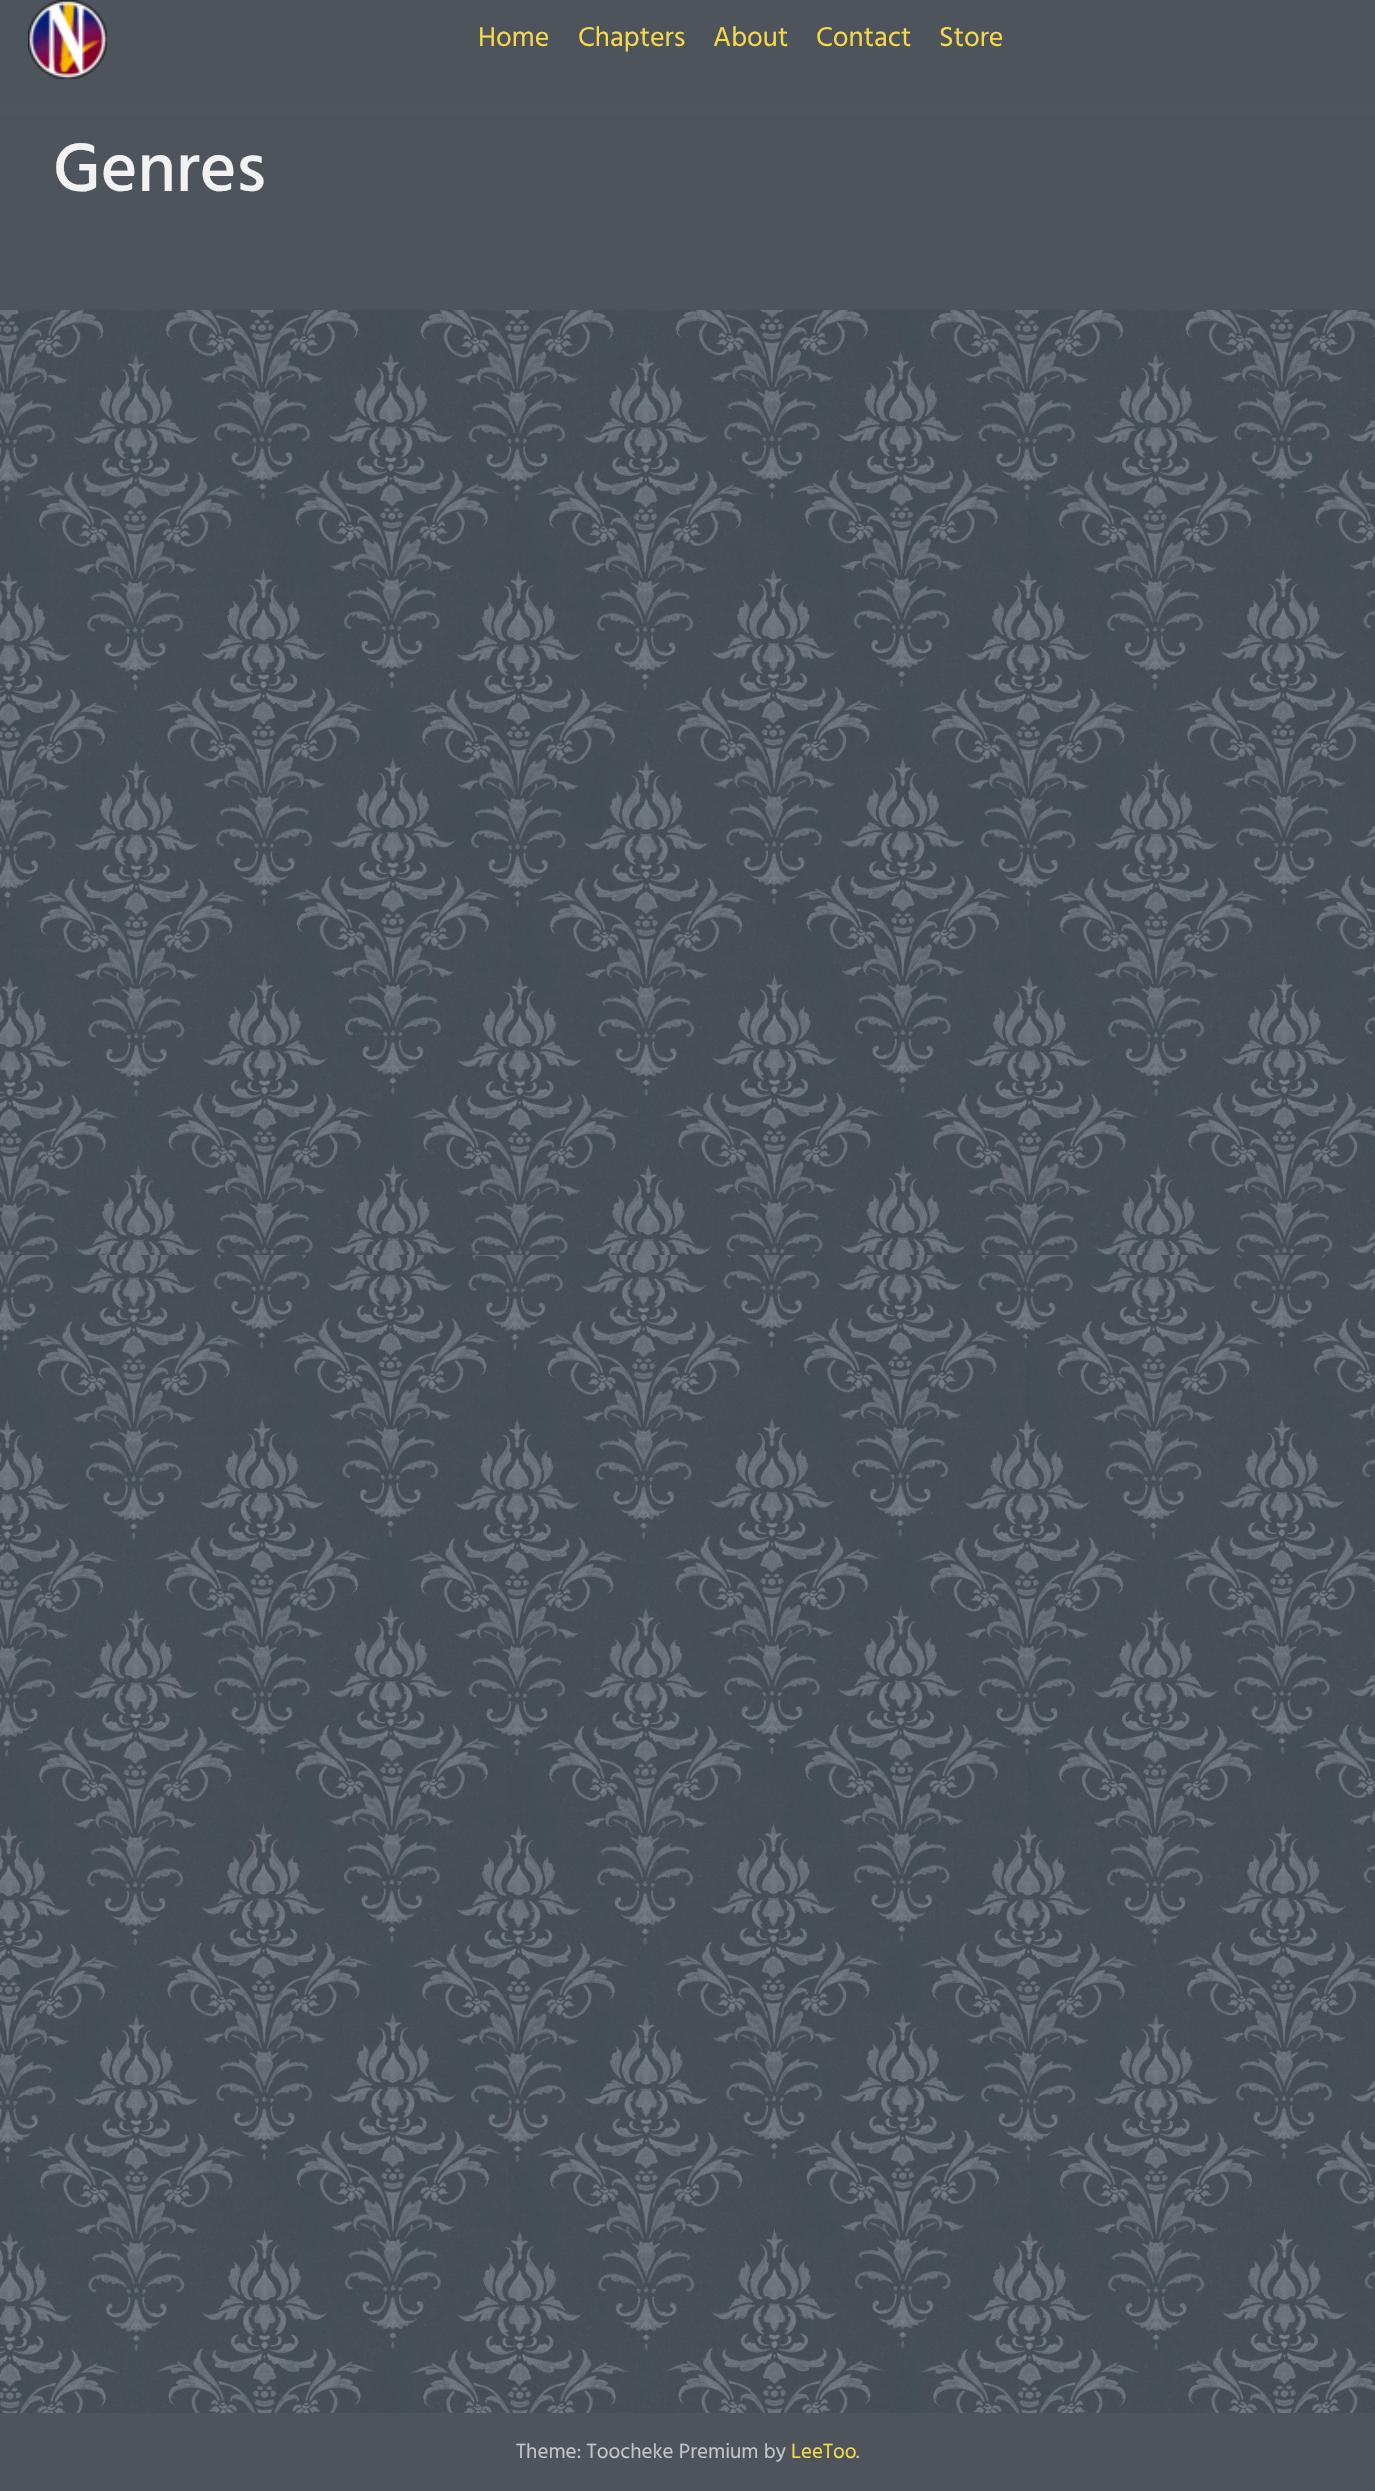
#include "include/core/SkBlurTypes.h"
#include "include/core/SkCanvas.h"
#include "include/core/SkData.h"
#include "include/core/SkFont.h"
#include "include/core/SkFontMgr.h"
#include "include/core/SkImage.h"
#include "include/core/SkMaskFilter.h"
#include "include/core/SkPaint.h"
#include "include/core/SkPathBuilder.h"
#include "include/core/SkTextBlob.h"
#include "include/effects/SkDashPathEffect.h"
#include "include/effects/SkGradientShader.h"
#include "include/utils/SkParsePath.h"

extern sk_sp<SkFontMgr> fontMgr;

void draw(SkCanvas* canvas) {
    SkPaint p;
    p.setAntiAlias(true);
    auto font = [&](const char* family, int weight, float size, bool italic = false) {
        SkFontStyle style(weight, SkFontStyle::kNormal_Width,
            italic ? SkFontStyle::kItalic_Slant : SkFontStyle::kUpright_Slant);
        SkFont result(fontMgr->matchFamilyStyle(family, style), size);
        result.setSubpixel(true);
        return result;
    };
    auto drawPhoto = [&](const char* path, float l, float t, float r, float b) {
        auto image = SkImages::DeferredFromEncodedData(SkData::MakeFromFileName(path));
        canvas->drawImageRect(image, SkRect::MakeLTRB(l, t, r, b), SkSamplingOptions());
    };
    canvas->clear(0xFFFFFFFF);
    drawPhoto("media/1.png", 0, 310, 1375, 2413);
    p.setColor(0xFF4D545C);
    canvas->drawRect(SkRect::MakeLTRB(0, 79, 1375, 310), p);
    p.setColor(0x14323232);
    p.setMaskFilter(SkMaskFilter::MakeBlur(kNormal_SkBlurStyle, 9.5f));
    canvas->drawRect(SkRect::MakeLTRB(0, 9, 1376, 88), p);
    p.setMaskFilter(nullptr);
    p.setColor(0xFF4D545C);
    canvas->drawRect(SkRect::MakeLTRB(0, 0, 1375, 79), p);
    drawPhoto("media/2.png", 28, 0, 107, 79);
    auto font1 = font("Hind", 400, 28);
    p.setColor(0xFFF8D94A);
    {
        const struct { const char* s; float x, y; } items[] = {
            {"Home", 478, 46},
            {"Chapters", 578, 46},
            {"About", 713, 46},
            {"Contact", 816, 46},
            {"Store", 939, 46},
        };
        for (auto [s, x, y] : items) {
            canvas->drawString(s, x, y, font1, p);
        }
    }
    auto font2 = font("Hind", 500, 70);
    p.setColor(0xFFF2F2F2);
    canvas->drawString("Genres", 53, 191, font2, p);
    p.setColor(0xFF4D545C);
    canvas->drawRect(SkRect::MakeLTRB(0, 2413, 1375, 2491), p);
    auto font3 = font("Hind", 400, 21);
    p.setColor(0xFFC5C5C5);
    canvas->drawString("Theme: Toocheke Premium by", 516, 2458, font3, p);
    p.setColor(0xFFF8D94A);
    canvas->drawString("LeeToo", 791, 2458, font3, p);
    p.setColor(0xFFC5C5C5);
    canvas->drawString(".", 856, 2458, font3, p);
}
